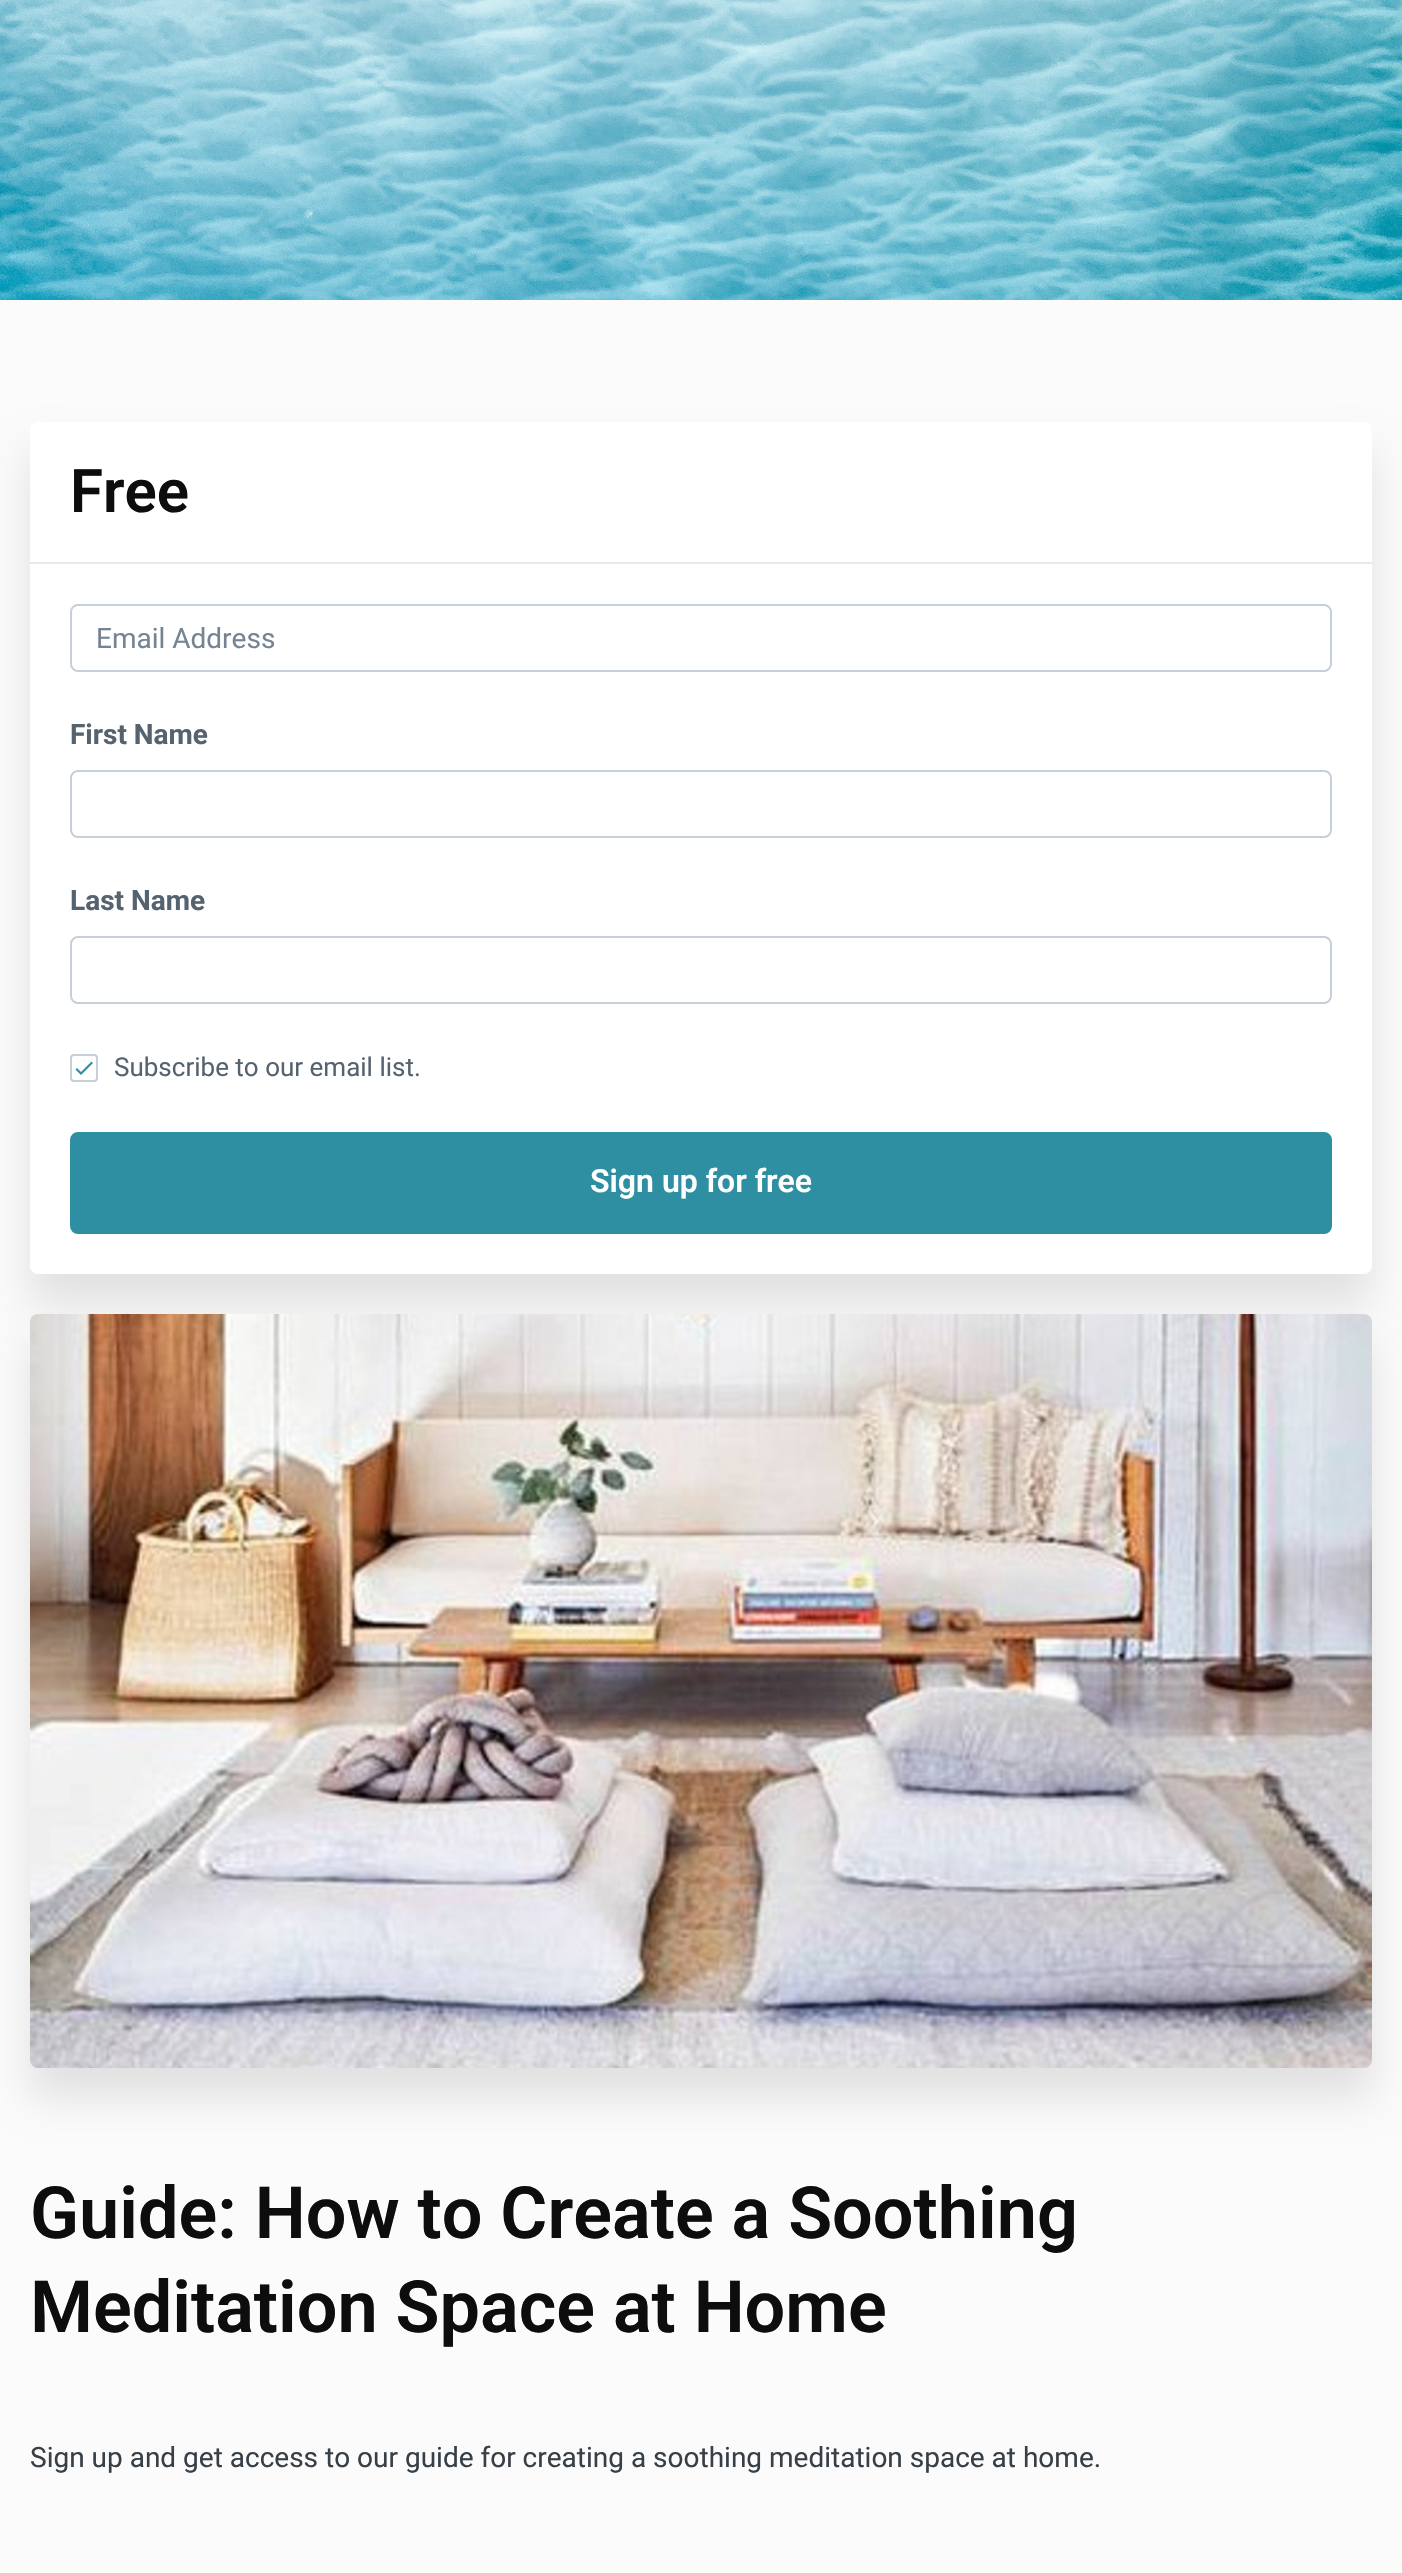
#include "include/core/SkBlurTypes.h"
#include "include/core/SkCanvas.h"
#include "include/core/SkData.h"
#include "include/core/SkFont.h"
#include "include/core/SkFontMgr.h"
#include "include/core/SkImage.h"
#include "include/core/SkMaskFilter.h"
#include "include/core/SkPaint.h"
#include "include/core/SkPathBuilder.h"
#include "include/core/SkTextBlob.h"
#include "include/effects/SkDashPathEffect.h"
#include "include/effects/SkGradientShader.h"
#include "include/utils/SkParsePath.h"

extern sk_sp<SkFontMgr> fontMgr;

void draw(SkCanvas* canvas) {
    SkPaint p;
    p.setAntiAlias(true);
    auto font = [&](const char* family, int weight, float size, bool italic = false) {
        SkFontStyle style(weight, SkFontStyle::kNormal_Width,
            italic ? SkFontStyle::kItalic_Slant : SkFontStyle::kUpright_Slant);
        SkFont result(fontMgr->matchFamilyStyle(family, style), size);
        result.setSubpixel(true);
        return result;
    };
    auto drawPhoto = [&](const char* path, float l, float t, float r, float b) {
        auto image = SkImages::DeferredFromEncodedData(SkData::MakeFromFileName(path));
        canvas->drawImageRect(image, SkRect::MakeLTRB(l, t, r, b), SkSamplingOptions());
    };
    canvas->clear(0xFFFBFBFB);
    drawPhoto("media/1.png", 0, 0, 1402, 300);
    p.setColor(0x1A000000);
    p.setMaskFilter(SkMaskFilter::MakeBlur(kNormal_SkBlurStyle, 20));
    canvas->drawRoundRect(SkRect::MakeLTRB(30, 452, 1372, 1304), 8, 8, p);
    p.setMaskFilter(nullptr);
    p.setColor(0xFFFFFFFF);
    canvas->drawRoundRect(SkRect::MakeLTRB(30, 422, 1372, 1274), 8, 8, p);
    p.setColor(0xFFE5E9E9);
    canvas->drawRect(SkRect::MakeLTRB(30, 562, 1372, 564), p);
    auto font1 = font("Roboto", 600, 60);
    p.setColor(0xFF0D0D0D);
    canvas->drawString("Free", 70, 512, font1, p);
    p.setStyle(SkPaint::kStroke_Style);
    p.setStrokeWidth(2);
    p.setColor(0xFFC7CFD8);
    canvas->drawRoundRect(SkRect::MakeLTRB(71, 605, 1331, 671), 7, 7, p);
    auto font2 = font("Roboto", 400, 28);
    p.setStyle(SkPaint::kFill_Style);
    p.setColor(0xFF748493);
    canvas->drawString("Email Address", 96, 648, font2, p);
    auto font3 = font("Roboto", 700, 28);
    p.setColor(0xFF556370);
    canvas->drawString("First Name", 70, 744, font3, p);
    p.setStyle(SkPaint::kStroke_Style);
    p.setColor(0xFFC7CFD8);
    canvas->drawRoundRect(SkRect::MakeLTRB(71, 771, 1331, 837), 7, 7, p);
    p.setStyle(SkPaint::kFill_Style);
    p.setColor(0xFF556370);
    canvas->drawString("Last Name", 70, 910, font3, p);
    p.setStyle(SkPaint::kStroke_Style);
    p.setColor(0xFFC7CFD8);
    canvas->drawRoundRect(SkRect::MakeLTRB(71, 937, 1331, 1003), 7, 7, p);
    canvas->drawRoundRect(SkRect::MakeLTRB(71, 1055, 97, 1081), 3, 3, p);
    p.setStyle(SkPaint::kFill_Style);
    p.setColor(0xFF2F8FA2);
    canvas->drawPath(SkPathBuilder().moveTo(81, 1072).lineTo(91.5f, 1061.5f).lineTo(93, 1063).lineTo(81, 1075).lineTo(75.5f, 1069.5f).lineTo(77, 1068).close().detach(), p);
    auto font4 = font("Roboto", 400, 26);
    p.setColor(0xFF556370);
    canvas->drawString("Subscribe to our email list.", 114, 1076, font4, p);
    p.setColor(0xFF2F8FA2);
    canvas->drawRoundRect(SkRect::MakeLTRB(71, 1133, 1331, 1233), 7, 7, p);
    p.setStyle(SkPaint::kStroke_Style);
    canvas->drawRoundRect(SkRect::MakeLTRB(71, 1133, 1331, 1233), 7, 7, p);
    auto font5 = font("Roboto", 600, 32);
    p.setStyle(SkPaint::kFill_Style);
    p.setColor(0xFFFFFFFF);
    canvas->drawString("Sign up for free", 590, 1192, font5, p);
    p.setColor(0x1A000000);
    p.setMaskFilter(SkMaskFilter::MakeBlur(kNormal_SkBlurStyle, 20));
    canvas->drawRoundRect(SkRect::MakeLTRB(30, 1344, 1372, 2098), 8, 8, p);
    p.setMaskFilter(nullptr);
    drawPhoto("media/2.png", 30, 1314, 1372, 2068);
    auto font6 = font("Roboto", 600, 72);
    p.setColor(0xFF0D0D0D);
    canvas->drawString("Guide: How to Create a Soothing", 30, 2238, font6, p);
    canvas->drawString("Meditation Space at Home", 30, 2332, font6, p);
    p.setColor(0xFF373F47);
    canvas->drawString("Sign up and get access to our guide for creating a soothing meditation space at home.", 30, 2467, font2, p);
}
